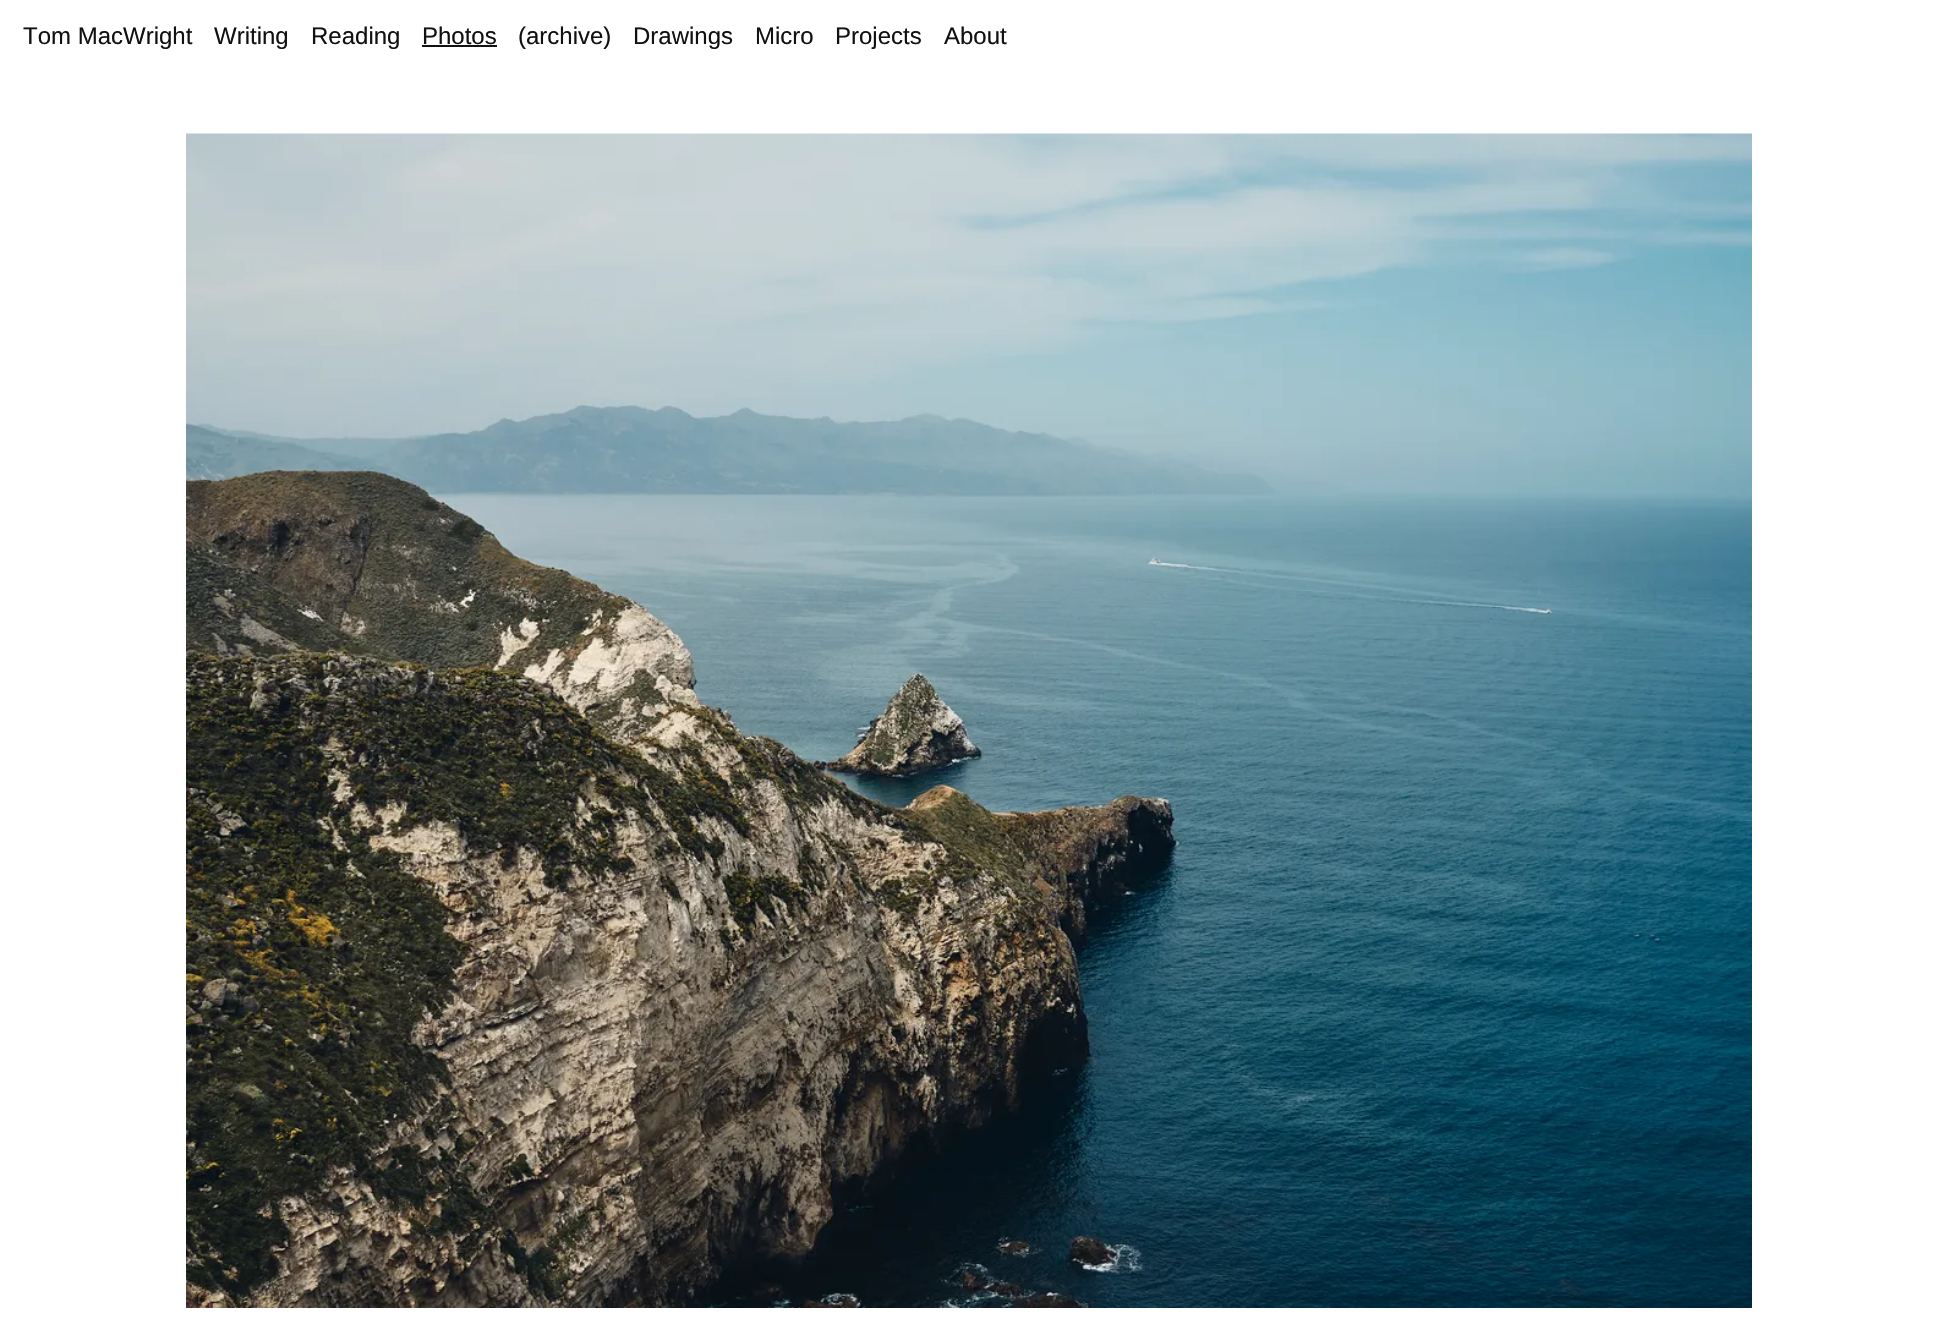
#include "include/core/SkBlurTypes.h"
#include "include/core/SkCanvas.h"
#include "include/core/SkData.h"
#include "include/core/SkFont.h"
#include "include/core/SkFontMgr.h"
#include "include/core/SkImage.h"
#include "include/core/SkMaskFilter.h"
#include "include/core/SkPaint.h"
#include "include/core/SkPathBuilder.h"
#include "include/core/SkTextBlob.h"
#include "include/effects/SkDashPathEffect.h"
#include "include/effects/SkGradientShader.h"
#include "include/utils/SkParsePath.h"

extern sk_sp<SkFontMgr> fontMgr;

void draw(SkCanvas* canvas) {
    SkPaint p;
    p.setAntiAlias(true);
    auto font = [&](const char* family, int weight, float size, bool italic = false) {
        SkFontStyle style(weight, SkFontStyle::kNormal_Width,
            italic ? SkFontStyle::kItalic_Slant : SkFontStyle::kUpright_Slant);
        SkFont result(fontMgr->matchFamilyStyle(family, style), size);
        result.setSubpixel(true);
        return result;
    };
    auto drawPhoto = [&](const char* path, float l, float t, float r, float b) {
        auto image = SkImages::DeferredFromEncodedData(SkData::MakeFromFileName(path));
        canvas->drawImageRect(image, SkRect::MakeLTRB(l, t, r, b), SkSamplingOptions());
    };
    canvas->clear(0xFFFFFFFF);
    auto font1 = font("Liberation Sans", 400, 24);
    p.setColor(0xFF111111);
    {
        const struct { const char* s; float x, y; } items[] = {
            {"Tom MacWright", 23, 44},
            {"Writing", 214, 44},
            {"Reading", 311, 44},
            {"Photos", 422, 44},
        };
        for (auto [s, x, y] : items) {
            canvas->drawString(s, x, y, font1, p);
        }
    }
    canvas->drawRect(SkRect::MakeLTRB(422, 45, 497, 47), p);
    {
        const struct { const char* s; float x, y; } items[] = {
            {"(archive)", 518, 44},
            {"Drawings", 633, 44},
            {"Micro", 755, 44},
            {"Projects", 835, 44},
            {"About", 944, 44},
        };
        for (auto [s, x, y] : items) {
            canvas->drawString(s, x, y, font1, p);
        }
    }
    drawPhoto("media/1.png", 186, 133, 1752, 1308);
}
